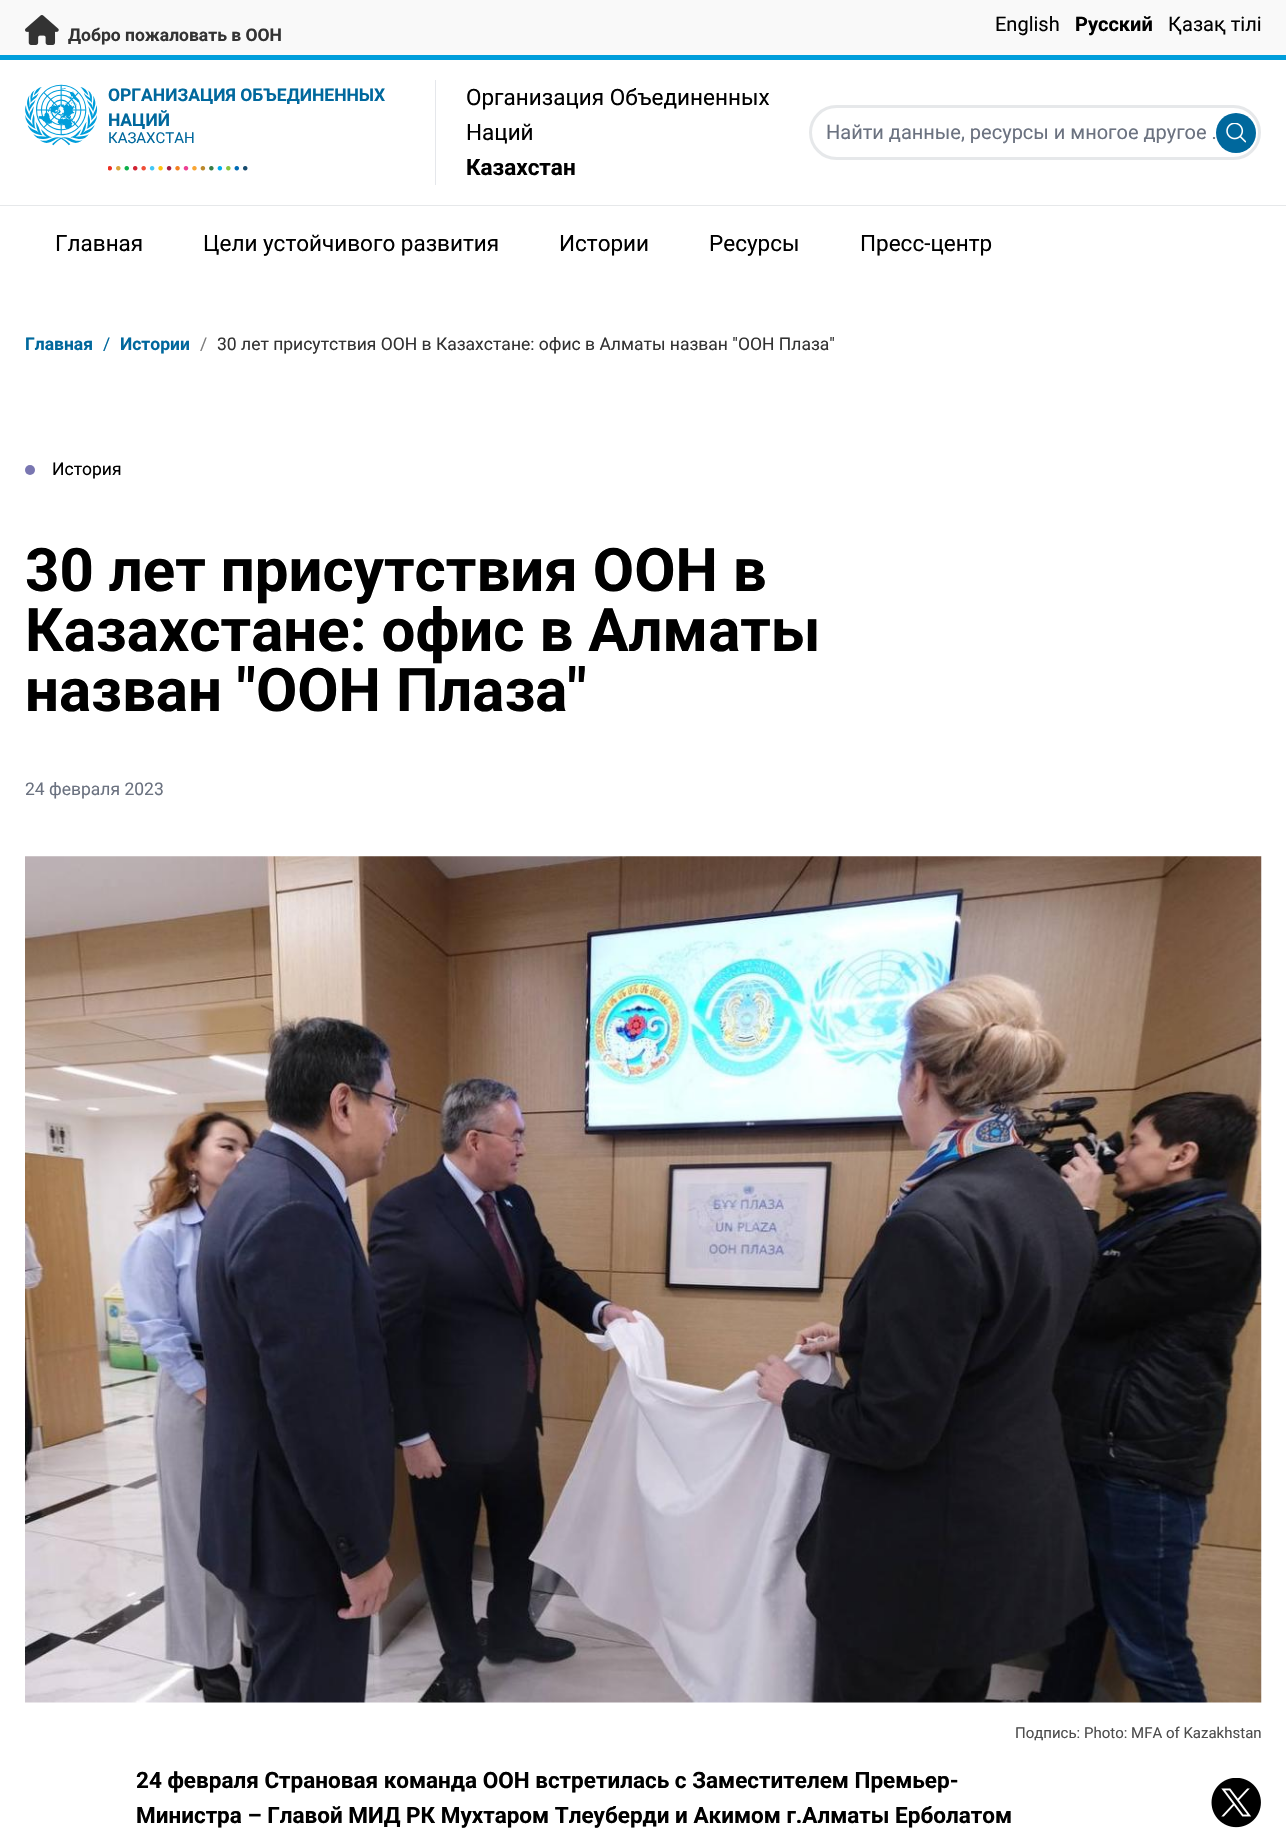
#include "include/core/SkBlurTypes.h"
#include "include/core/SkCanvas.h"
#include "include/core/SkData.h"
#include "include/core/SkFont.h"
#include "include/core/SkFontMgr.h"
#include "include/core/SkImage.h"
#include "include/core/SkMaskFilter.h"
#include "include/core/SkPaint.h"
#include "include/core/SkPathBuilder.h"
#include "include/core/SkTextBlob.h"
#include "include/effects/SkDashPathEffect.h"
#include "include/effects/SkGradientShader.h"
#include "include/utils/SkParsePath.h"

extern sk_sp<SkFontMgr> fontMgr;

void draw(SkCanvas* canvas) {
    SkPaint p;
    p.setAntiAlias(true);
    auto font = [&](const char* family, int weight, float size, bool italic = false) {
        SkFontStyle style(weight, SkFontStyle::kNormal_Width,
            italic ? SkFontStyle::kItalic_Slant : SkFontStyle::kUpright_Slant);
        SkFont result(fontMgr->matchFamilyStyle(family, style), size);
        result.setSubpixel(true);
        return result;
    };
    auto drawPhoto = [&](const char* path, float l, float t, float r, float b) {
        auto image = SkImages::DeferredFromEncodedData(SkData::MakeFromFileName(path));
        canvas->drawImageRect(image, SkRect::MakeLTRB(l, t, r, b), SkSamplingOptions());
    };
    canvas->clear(0xFFFFFFFF);
    p.setColor(0xFFF9F9F9);
    canvas->drawRect(SkRect::MakeLTRB(0, 0, 1286, 55), p);
    p.setColor(0xFF009EDB);
    canvas->drawRect(SkRect::MakeLTRB(0, 55, 1286, 60), p);
    drawPhoto("media/1.png", 25, 15, 59, 45);
    auto font1 = font("Roboto", 700, 17.5f);
    p.setColor(0xFF333333);
    canvas->drawString("Добро пожаловать в ООН", 68, 41, font1, p);
    auto font2 = font("Roboto", 400, 20);
    p.setColor(0xFF000000);
    canvas->drawString("English", 995, 31, font2, p);
    auto font3 = font("Roboto", 700, 20);
    canvas->drawString("Русский", 1075, 31, font3, p);
    canvas->drawString("Қазақ тілі", 1168, 31, font2, p);
    p.setColor(0xFFE6E8EA);
    canvas->drawRect(SkRect::MakeLTRB(0, 205, 1286, 206), p);
    drawPhoto("media/2.png", 25, 84, 98, 146);
    p.setColor(0xFF00689D);
    canvas->drawString("ОРГАНИЗАЦИЯ ОБЪЕДИНЕННЫХ", 108, 101, font1, p);
    canvas->drawString("НАЦИЙ", 108, 126, font1, p);
    auto font4 = font("Roboto", 400, 15);
    canvas->drawString("КАЗАХСТАН", 108, 143, font4, p);
    drawPhoto("media/3.png", 108, 166, 248, 171);
    p.setColor(0xFFE5E7EB);
    canvas->drawRect(SkRect::MakeLTRB(435, 80, 436, 185), p);
    auto font5 = font("Roboto", 400, 22.5f);
    p.setColor(0xFF000000);
    canvas->drawString("Организация Объединенных", 466, 105, font5, p);
    canvas->drawString("Наций", 466, 140, font5, p);
    auto font6 = font("Roboto", 700, 22.5f);
    canvas->drawString("Казахстан", 466, 175, font6, p);
    p.setStyle(SkPaint::kStroke_Style);
    p.setStrokeWidth(3);
    p.setColor(0xFFE6E8EA);
    canvas->drawRoundRect(SkRect::MakeLTRB(810.5f, 106.5f, 1259.5f, 158.5f), 26, 26, p);
    p.setStyle(SkPaint::kFill_Style);
    p.setColor(0xFF6B7280);
    canvas->drawString("Найти данные, ресурсы и многое другое .", 826, 139, font2, p);
    p.setColor(0xFF00689D);
    canvas->drawCircle(1236, 133, 20, p);
    drawPhoto("media/4.png", 1226, 123, 1246, 143);
    p.setColor(0xFF000000);
    {
        const struct { const char* s; float x, y; } items[] = {
            {"Главная", 55, 251},
            {"Цели устойчивого развития", 203, 251},
            {"Истории", 559, 251},
            {"Ресурсы", 709, 251},
            {"Пресс-центр", 860, 251},
        };
        for (auto [s, x, y] : items) {
            canvas->drawString(s, x, y, font5, p);
        }
    }
    p.setColor(0xFF00689D);
    canvas->drawString("Главная", 25, 350, font1, p);
    auto font7 = font("Roboto", 400, 17.5f);
    canvas->drawString("/", 103, 350, font7, p);
    canvas->drawString("Истории", 120, 350, font1, p);
    p.setColor(0xFF7C7C7C);
    canvas->drawString("/", 200, 350, font7, p);
    p.setColor(0xFF333333);
    canvas->drawString("30 лет присутствия ООН в Казахстане: офис в Алматы назван \"ООН Плаза\"", 217, 350, font7, p);
    p.setColor(0xFF7976B1);
    canvas->drawCircle(30, 470, 5, p);
    p.setColor(0xFF000000);
    canvas->drawString("История", 52, 475, font7, p);
    auto font8 = font("Roboto", 700, 60);
    {
        const struct { const char* s; float x, y; } items[] = {
            {"30 лет присутствия ООН в", 25, 591},
            {"Казахстане: офис в Алматы", 25, 651},
            {"назван \"ООН Плаза\"", 25, 711},
        };
        for (auto [s, x, y] : items) {
            canvas->drawString(s, x, y, font8, p);
        }
    }
    p.setColor(0xFF6B7280);
    canvas->drawString("24 февраля 2023", 25, 795, font7, p);
    drawPhoto("media/5.png", 25, 856, 1262, 1703);
    p.setColor(0xFF4D4D4D);
    canvas->drawString("Подпись: Photo: MFA of Kazakhstan", 1015, 1738, font4, p);
    p.setColor(0xFF000000);
    canvas->drawString("24 февраля Страновая команда ООН встретилась с Заместителем Премьер-", 136, 1788, font6, p);
    canvas->drawString("Министра – Главой МИД РК Мухтаром Тлеуберди и Акимом г.Алматы Ерболатом", 136, 1823, font6, p);
    drawPhoto("media/6.png", 1211, 1778, 1261, 1828);
}
